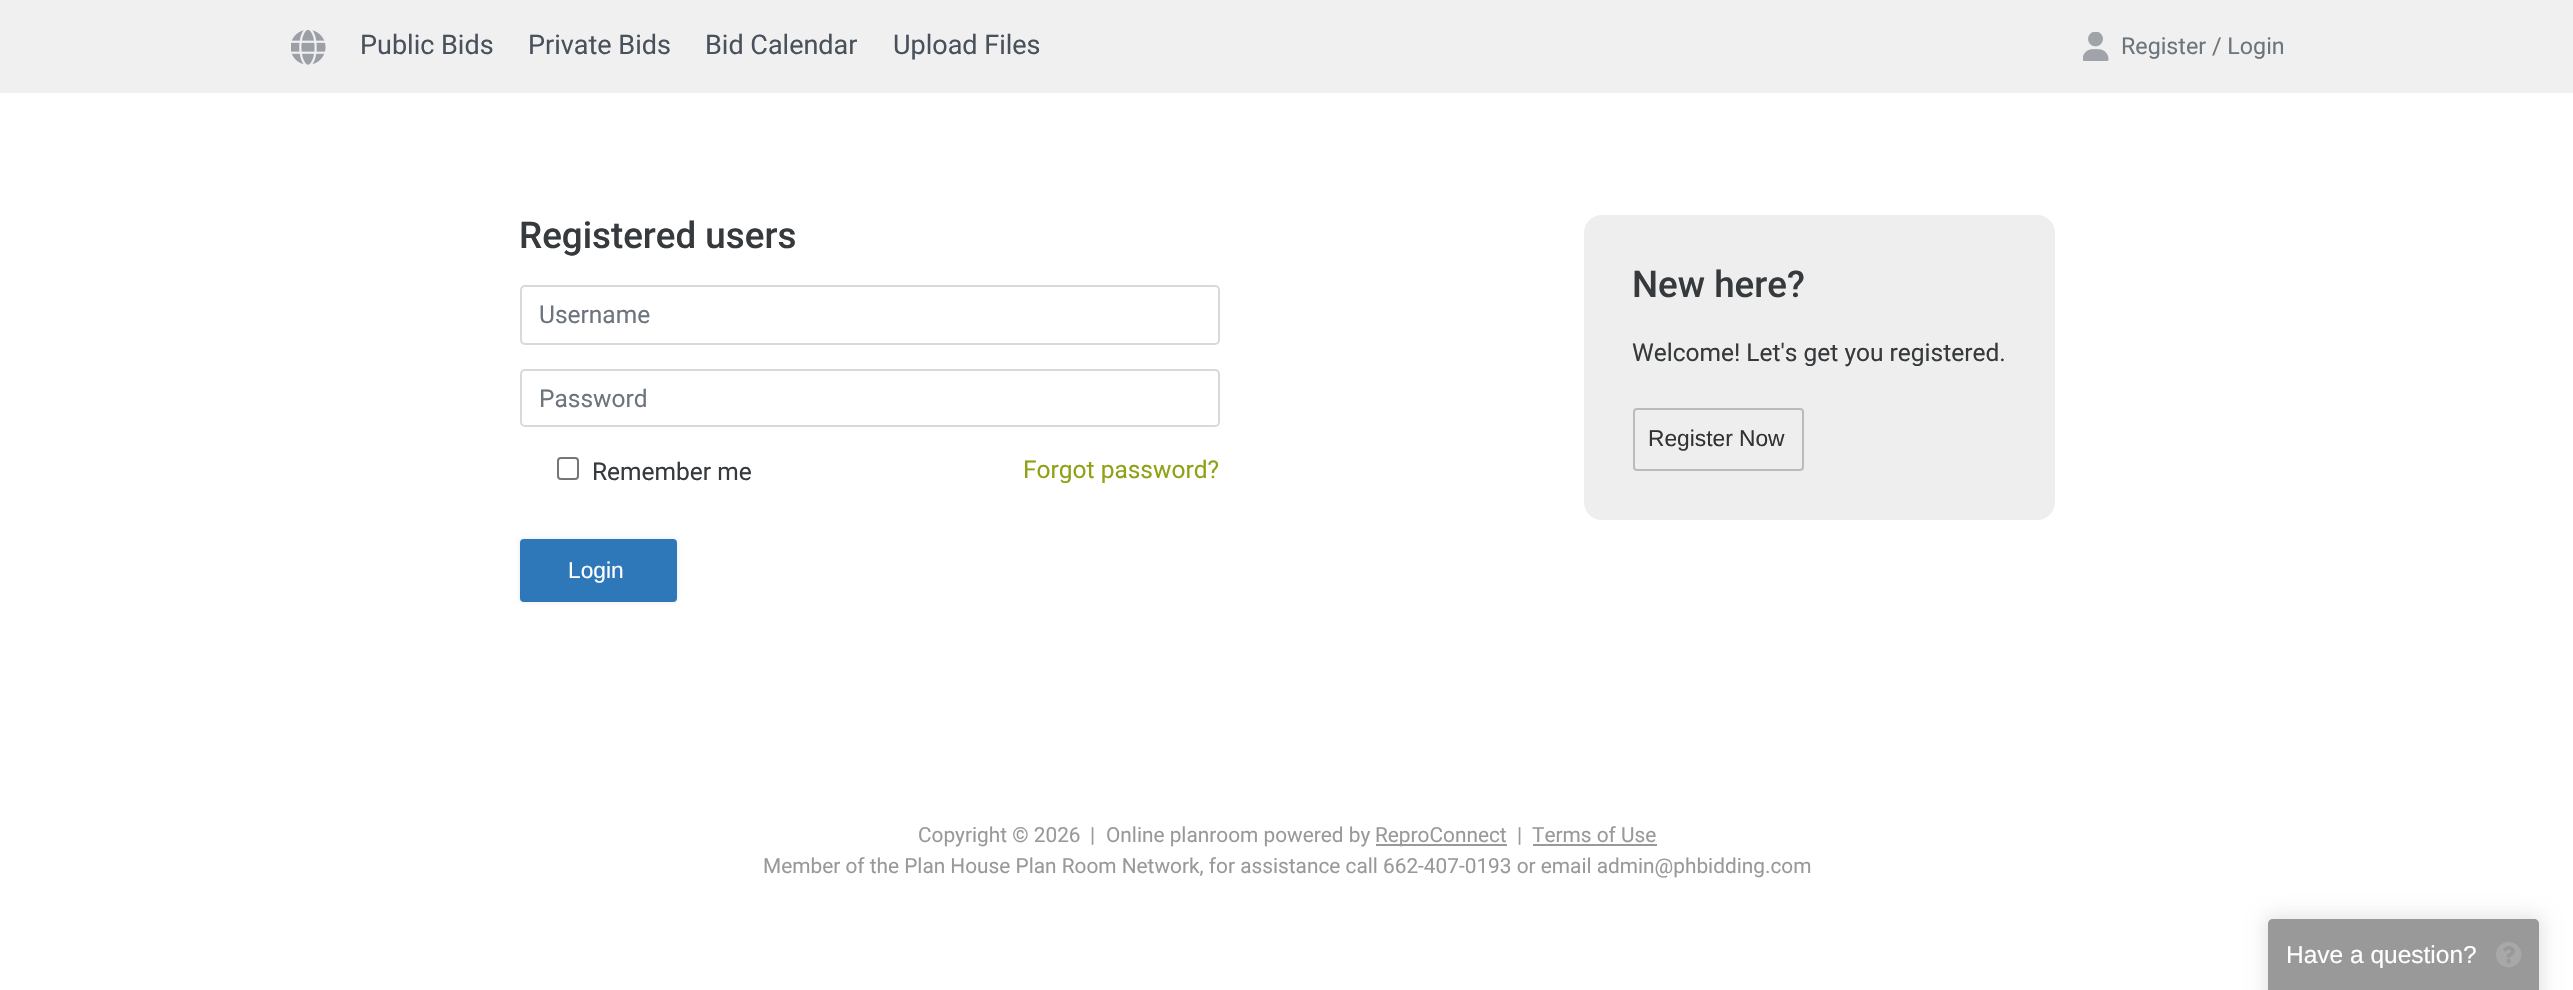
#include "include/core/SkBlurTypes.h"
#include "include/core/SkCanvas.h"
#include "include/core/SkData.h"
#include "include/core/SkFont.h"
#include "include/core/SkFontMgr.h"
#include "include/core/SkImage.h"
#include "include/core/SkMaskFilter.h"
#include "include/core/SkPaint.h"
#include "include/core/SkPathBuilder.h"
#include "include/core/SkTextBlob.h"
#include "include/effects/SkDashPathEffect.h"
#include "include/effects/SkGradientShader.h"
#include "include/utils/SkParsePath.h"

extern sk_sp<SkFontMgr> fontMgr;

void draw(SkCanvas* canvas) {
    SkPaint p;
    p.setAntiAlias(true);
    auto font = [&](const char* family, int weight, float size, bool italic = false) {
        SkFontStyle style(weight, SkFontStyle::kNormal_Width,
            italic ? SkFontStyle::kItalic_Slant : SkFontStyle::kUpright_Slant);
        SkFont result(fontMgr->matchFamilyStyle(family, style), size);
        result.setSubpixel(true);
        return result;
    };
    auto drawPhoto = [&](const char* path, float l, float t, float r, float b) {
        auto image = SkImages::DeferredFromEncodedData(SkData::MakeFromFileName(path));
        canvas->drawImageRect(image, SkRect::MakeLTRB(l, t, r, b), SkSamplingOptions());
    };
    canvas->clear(0xFFFFFFFF);
    p.setColor(0xFFF0F0F0);
    canvas->drawRect(SkRect::MakeLTRB(0, 0, 2573, 93), p);
    drawPhoto("media/1.png", 291, 30, 326, 65);
    auto font1 = font("Roboto", 400, 27);
    p.setColor(0xFF49515C);
    {
        const struct { const char* s; float x, y; } items[] = {
            {"Public Bids", 360, 54},
            {"Private Bids", 528, 54},
            {"Bid Calendar", 705, 54},
            {"Upload Files", 893, 54},
        };
        for (auto [s, x, y] : items) {
            canvas->drawString(s, x, y, font1, p);
        }
    }
    drawPhoto("media/2.png", 2083, 32, 2109, 61);
    auto font2 = font("Roboto", 400, 23.25f);
    p.setColor(0xFF6C757D);
    canvas->drawString("Register / Login", 2121, 54, font2, p);
    auto font3 = font("Roboto", 500, 36.75f);
    p.setColor(0xFF373A3C);
    canvas->drawString("Registered users", 519, 248, font3, p);
    p.setStyle(SkPaint::kStroke_Style);
    p.setStrokeWidth(2);
    p.setColor(0xFFD9D9D9);
    canvas->drawRoundRect(SkRect::MakeLTRB(521, 286, 1219, 344), 4, 4, p);
    auto font4 = font("Roboto", 400, 24.5f);
    p.setStyle(SkPaint::kFill_Style);
    p.setColor(0xFF6C757D);
    canvas->drawString("Username", 539, 323, font4, p);
    p.setStyle(SkPaint::kStroke_Style);
    p.setColor(0xFFD9D9D9);
    canvas->drawRoundRect(SkRect::MakeLTRB(521, 370, 1219, 426), 4, 4, p);
    p.setStyle(SkPaint::kFill_Style);
    p.setColor(0xFF6C757D);
    canvas->drawString("Password", 539, 407, font4, p);
    p.setStyle(SkPaint::kStroke_Style);
    p.setColor(0xFF767676);
    canvas->drawRoundRect(SkRect::MakeLTRB(558, 458, 578, 479), 3, 3, p);
    p.setStyle(SkPaint::kFill_Style);
    p.setColor(0xFF373A3C);
    canvas->drawString("Remember me", 592, 480, font4, p);
    p.setColor(0xFF91A115);
    canvas->drawString("Forgot password?", 1023, 478, font4, p);
    p.setColor(0x1A000000);
    p.setMaskFilter(SkMaskFilter::MakeBlur(kNormal_SkBlurStyle, 2));
    canvas->drawRoundRect(SkRect::MakeLTRB(520, 539, 677, 602), 4, 4, p);
    p.setMaskFilter(nullptr);
    p.setColor(0xFF2E78BA);
    canvas->drawRoundRect(SkRect::MakeLTRB(521, 540, 676, 601), 3, 3, p);
    p.setStyle(SkPaint::kStroke_Style);
    canvas->drawRoundRect(SkRect::MakeLTRB(521, 540, 676, 601), 3, 3, p);
    auto font5 = font("Liberation Sans", 400, 22.75f);
    p.setStyle(SkPaint::kFill_Style);
    p.setColor(0xFFFFFFFF);
    canvas->drawString("Login", 568, 578, font5, p);
    p.setColor(0xFFEEEEEE);
    canvas->drawRoundRect(SkRect::MakeLTRB(1584, 215, 2055, 520), 18, 18, p);
    p.setColor(0xFF373A3C);
    canvas->drawString("New here?", 1632, 297, font3, p);
    canvas->drawString("Welcome! Let's get you registered.", 1632, 361, font4, p);
    p.setStyle(SkPaint::kStroke_Style);
    p.setColor(0xFFBBBBBB);
    canvas->drawRoundRect(SkRect::MakeLTRB(1634, 409, 1803, 470), 3, 3, p);
    p.setStyle(SkPaint::kFill_Style);
    p.setColor(0xFF333333);
    canvas->drawString("Register Now", 1648, 446, font5, p);
    auto font6 = font("Roboto", 400, 20.82f);
    p.setColor(0xFF999999);
    {
        const struct { const char* s; float x, y; } items[] = {
            {"Copyright © 2026", 918, 842},
            {"|", 1090, 842},
            {"Online planroom powered by", 1106, 842},
        };
        for (auto [s, x, y] : items) {
            canvas->drawString(s, x, y, font6, p);
        }
    }
    canvas->drawRect(SkRect::MakeLTRB(1376, 844, 1507, 846), p);
    {
        const struct { const char* s; float x, y; } items[] = {
            {"ReproConnect", 1375, 842},
            {"|", 1517, 842},
            {"Terms of Use", 1532, 842},
        };
        for (auto [s, x, y] : items) {
            canvas->drawString(s, x, y, font6, p);
        }
    }
    canvas->drawRect(SkRect::MakeLTRB(1533, 844, 1657, 846), p);
    canvas->drawString("Member of the Plan House Plan Room Network, for assistance call 662-407-0193 or email admin@phbidding.com", 763, 873, font6, p);
    canvas->save();
    canvas->clipPath(SkPathBuilder(SkPathFillType::kEvenOdd).moveTo(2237, 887).lineTo(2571, 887).lineTo(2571, 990).lineTo(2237, 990).close().moveTo(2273, 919).lineTo(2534, 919).cubicTo(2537, 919, 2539, 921, 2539, 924).lineTo(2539, 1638).lineTo(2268, 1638).lineTo(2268, 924).cubicTo(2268, 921, 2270, 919, 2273, 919).close().detach(), true);
    p.setColor(0x1A000000);
    p.setMaskFilter(SkMaskFilter::MakeBlur(kNormal_SkBlurStyle, 9));
    canvas->drawRoundRect(SkRect::MakeLTRB(2265, 915, 2543, 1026), 9, 9, p);
    p.setMaskFilter(nullptr);
    canvas->restore();
    p.setColor(0x80333333);
    canvas->drawPath(SkPathBuilder().moveTo(2273, 919).lineTo(2534, 919).cubicTo(2537, 919, 2539, 921, 2539, 924).lineTo(2539, 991).lineTo(2268, 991).lineTo(2268, 924).cubicTo(2268, 921, 2270, 919, 2273, 919).close().detach(), p);
    auto font7 = font("Liberation Sans", 400, 24.5f);
    p.setColor(0xFFFFFFFF);
    canvas->drawString("Have a question?", 2286, 963, font7, p);
    drawPhoto("media/3.png", 2496, 942, 2522, 968);
}
